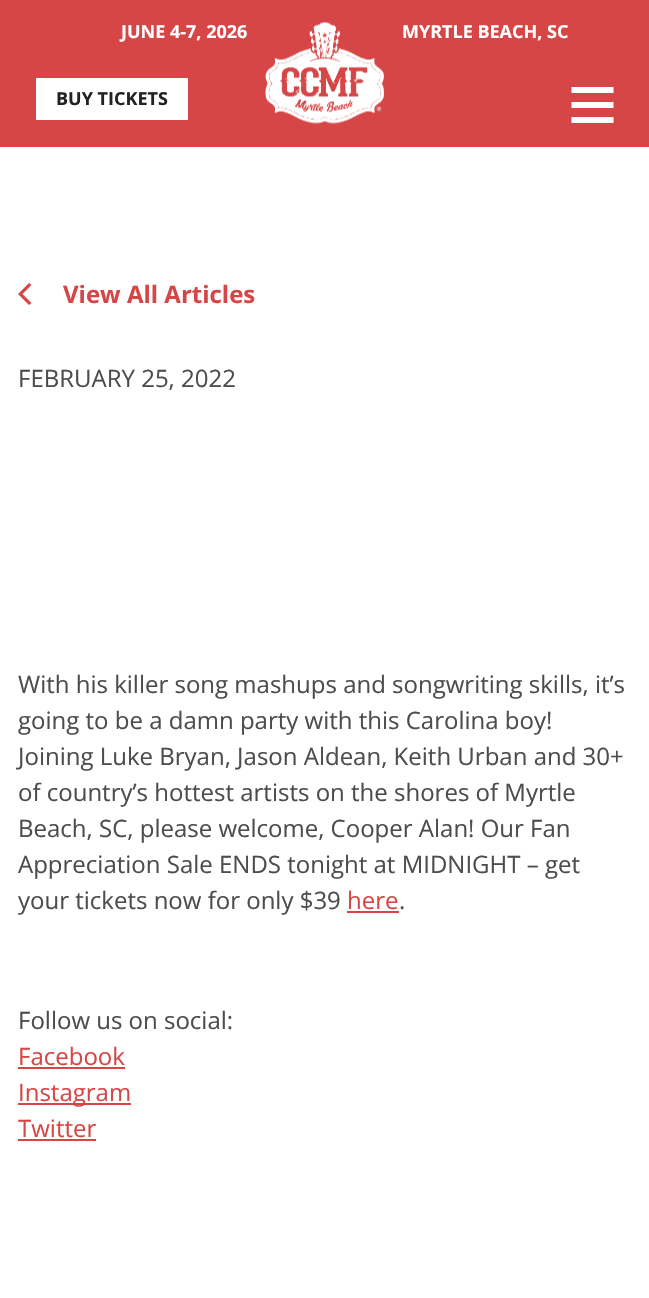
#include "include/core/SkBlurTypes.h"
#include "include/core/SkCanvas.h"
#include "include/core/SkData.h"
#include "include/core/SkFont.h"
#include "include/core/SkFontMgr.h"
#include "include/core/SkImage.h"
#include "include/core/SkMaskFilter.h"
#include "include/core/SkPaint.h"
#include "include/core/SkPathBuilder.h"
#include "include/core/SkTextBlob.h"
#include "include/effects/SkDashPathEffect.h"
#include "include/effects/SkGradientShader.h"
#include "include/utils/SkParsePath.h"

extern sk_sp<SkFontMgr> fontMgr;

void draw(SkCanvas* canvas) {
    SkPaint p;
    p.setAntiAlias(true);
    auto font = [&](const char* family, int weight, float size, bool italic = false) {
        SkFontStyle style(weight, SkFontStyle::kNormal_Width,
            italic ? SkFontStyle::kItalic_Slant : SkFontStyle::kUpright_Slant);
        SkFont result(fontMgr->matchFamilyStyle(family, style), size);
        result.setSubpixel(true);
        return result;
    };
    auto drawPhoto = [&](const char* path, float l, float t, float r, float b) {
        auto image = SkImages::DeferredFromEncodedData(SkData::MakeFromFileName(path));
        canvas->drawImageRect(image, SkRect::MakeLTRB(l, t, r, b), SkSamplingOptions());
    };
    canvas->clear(0xFFFFFFFF);
    p.setColor(0xFFD64646);
    canvas->drawRect(SkRect::MakeLTRB(0, 0, 649, 147), p);
    drawPhoto("media/1.png", 265, 22, 384, 124);
    auto font1 = font("Open Sans", 700, 18);
    p.setColor(0xFFFFFFFF);
    canvas->drawString("JUNE 4-7, 2026", 121, 38, font1, p);
    canvas->drawString("MYRTLE BEACH, SC", 402, 38, font1, p);
    canvas->drawRect(SkRect::MakeLTRB(36, 78, 188, 120), p);
    p.setColor(0xFF222222);
    canvas->drawString("BUY TICKETS", 56, 105, font1, p);
    drawPhoto("media/2.png", 571, 87, 614, 123);
    p.setColor(0xFFD64646);
    canvas->drawPath(SkPathBuilder().moveTo(18, 294).lineTo(29, 305).lineTo(31.5f, 303).lineTo(22.5f, 294).lineTo(31.5f, 285).lineTo(29, 283).close().detach(), p);
    auto font2 = font("Open Sans", 700, 24);
    canvas->drawString("View All Articles", 63, 303, font2, p);
    auto font3 = font("Open Sans", 400, 24);
    p.setColor(0xFF4D4D4D);
    {
        const struct { const char* s; float x, y; } items[] = {
            {"FEBRUARY 25, 2022", 18, 387},
            {"With his killer song mashups and songwriting skills, it’s", 18, 693},
            {"going to be a damn party with this Carolina boy!", 18, 729},
            {"Joining Luke Bryan, Jason Aldean, Keith Urban and 30+", 18, 765},
            {"of country’s hottest artists on the shores of Myrtle", 18, 801},
            {"Beach, SC, please welcome, Cooper Alan! Our Fan", 18, 837},
            {"Appreciation Sale ENDS tonight at MIDNIGHT – get", 18, 873},
            {"your tickets now for only $39", 18, 909},
        };
        for (auto [s, x, y] : items) {
            canvas->drawString(s, x, y, font3, p);
        }
    }
    p.setColor(0xFFD64646);
    canvas->drawString("here", 347, 909, font3, p);
    canvas->drawRect(SkRect::MakeLTRB(347, 911, 399, 913), p);
    p.setColor(0xFF4D4D4D);
    canvas->drawString(".", 399, 909, font3, p);
    canvas->drawString("Follow us on social:", 18, 1029, font3, p);
    p.setColor(0xFFD64646);
    canvas->drawString("Facebook", 18, 1065, font3, p);
    canvas->drawRect(SkRect::MakeLTRB(18, 1067, 125, 1069), p);
    canvas->drawRect(SkRect::MakeLTRB(18, 1103, 131, 1105), p);
    canvas->drawString("Instagram", 18, 1101, font3, p);
    canvas->drawString("Twitter", 18, 1137, font3, p);
    canvas->drawRect(SkRect::MakeLTRB(18, 1139, 96, 1141), p);
}
